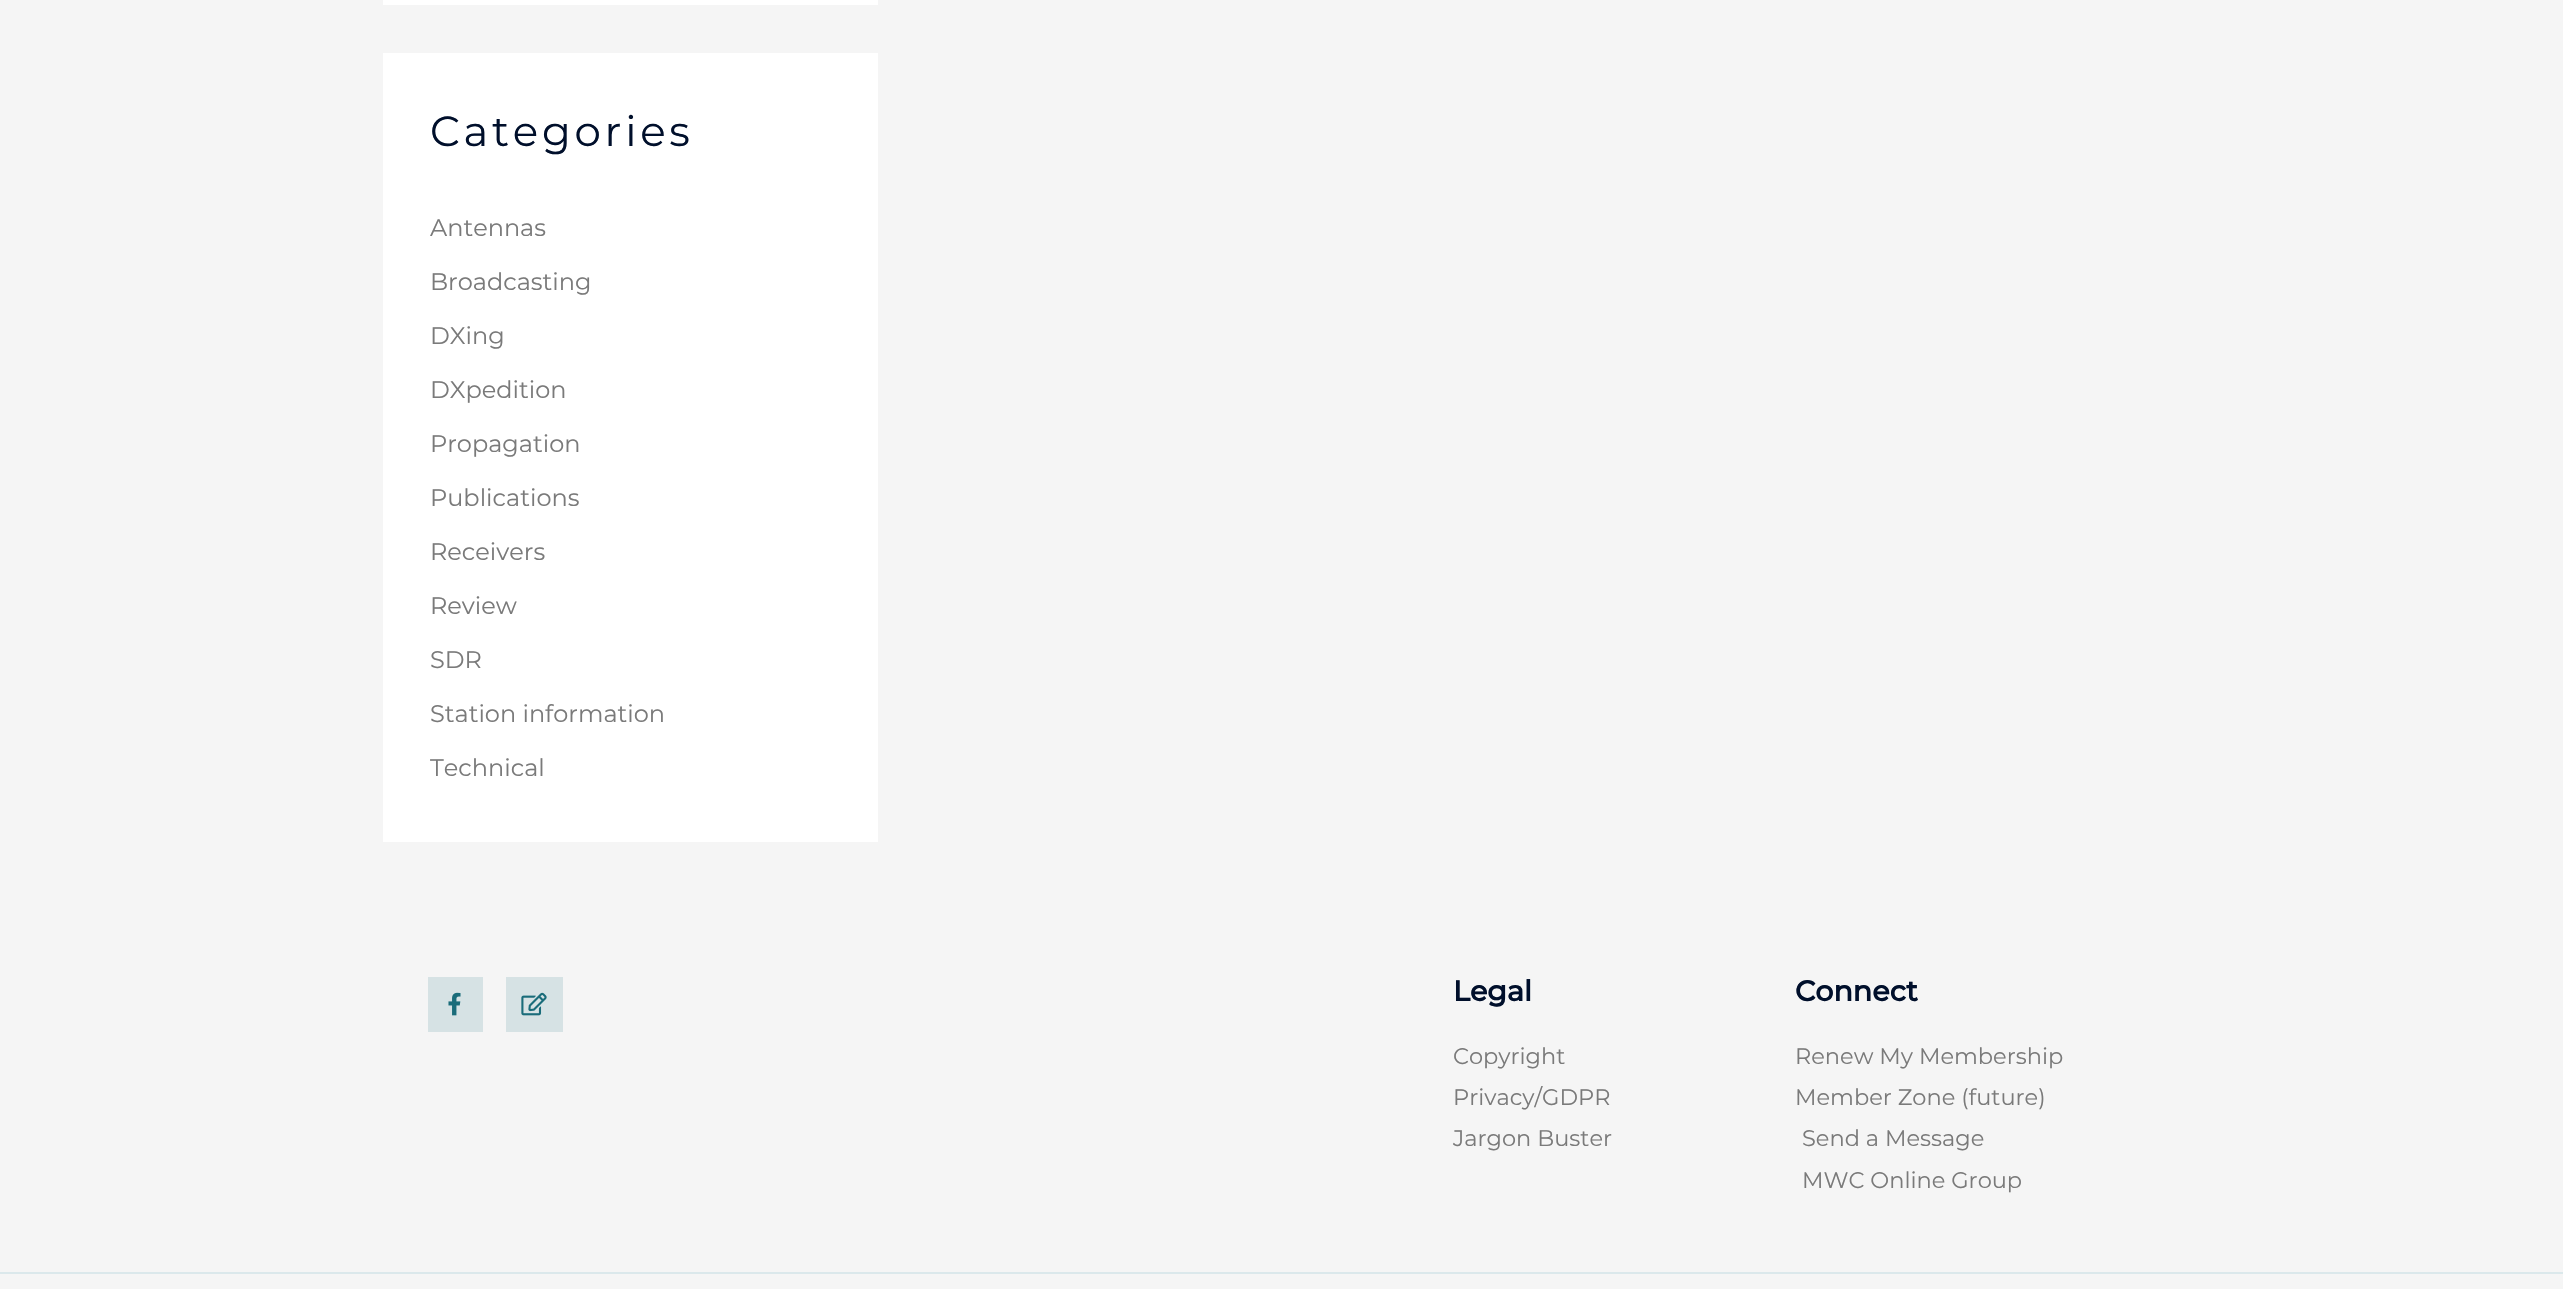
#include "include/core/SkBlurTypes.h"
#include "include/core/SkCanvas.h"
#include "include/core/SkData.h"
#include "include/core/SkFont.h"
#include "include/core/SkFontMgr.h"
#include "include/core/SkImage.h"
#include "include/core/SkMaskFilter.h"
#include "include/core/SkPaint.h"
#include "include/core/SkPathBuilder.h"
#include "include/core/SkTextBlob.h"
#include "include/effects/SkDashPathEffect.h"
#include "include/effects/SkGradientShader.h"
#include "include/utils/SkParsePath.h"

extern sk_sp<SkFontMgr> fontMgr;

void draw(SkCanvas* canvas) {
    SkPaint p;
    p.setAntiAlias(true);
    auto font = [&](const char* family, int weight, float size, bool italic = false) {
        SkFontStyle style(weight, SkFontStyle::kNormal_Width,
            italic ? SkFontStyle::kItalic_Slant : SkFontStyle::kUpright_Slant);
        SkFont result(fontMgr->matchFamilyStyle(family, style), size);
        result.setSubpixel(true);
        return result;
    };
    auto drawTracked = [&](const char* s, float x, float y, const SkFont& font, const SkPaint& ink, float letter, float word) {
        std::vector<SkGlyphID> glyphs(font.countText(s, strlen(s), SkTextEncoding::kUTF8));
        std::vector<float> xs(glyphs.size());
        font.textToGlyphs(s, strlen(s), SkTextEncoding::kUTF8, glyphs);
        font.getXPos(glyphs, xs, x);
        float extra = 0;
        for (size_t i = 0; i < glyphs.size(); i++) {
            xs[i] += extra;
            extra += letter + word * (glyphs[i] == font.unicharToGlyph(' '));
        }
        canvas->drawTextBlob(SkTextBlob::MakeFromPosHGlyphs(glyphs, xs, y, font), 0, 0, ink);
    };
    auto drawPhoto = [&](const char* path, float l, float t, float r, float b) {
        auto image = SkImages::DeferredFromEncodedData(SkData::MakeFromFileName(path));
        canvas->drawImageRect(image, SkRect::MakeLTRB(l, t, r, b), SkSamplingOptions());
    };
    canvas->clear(0xFFF5F5F5);
    p.setColor(0xFFFFFFFF);
    canvas->drawRect(SkRect::MakeLTRB(383, 0, 878, 5), p);
    canvas->drawRect(SkRect::MakeLTRB(383, 53, 878, 842), p);
    auto font1 = font("Montserrat", 400, 42);
    p.setColor(0xFF000F2B);
    drawTracked("Categories", 430, 146, font1, p, 3.75f, 0);
    auto font2 = font("Montserrat", 400, 24);
    p.setColor(0xFF7A7A7A);
    {
        const struct { const char* s; float x, y; } items[] = {
            {"Antennas", 430, 236},
            {"Broadcasting", 430, 290},
            {"DXing", 430, 344},
            {"DXpedition", 430, 398},
            {"Propagation", 430, 452},
            {"Publications", 430, 506},
            {"Receivers", 430, 560},
            {"Review", 430, 614},
            {"SDR", 430, 668},
            {"Station information", 430, 722},
            {"Technical", 430, 776},
        };
        for (auto [s, x, y] : items) {
            canvas->drawString(s, x, y, font2, p);
        }
    }
    p.setColor(0xFFD6E2E4);
    canvas->drawRect(SkRect::MakeLTRB(428, 977, 483, 1032), p);
    drawPhoto("media/1.png", 448, 992, 461, 1016);
    canvas->drawRect(SkRect::MakeLTRB(506, 977, 563, 1032), p);
    drawPhoto("media/2.png", 521, 992, 547, 1016);
    auto font3 = font("Montserrat", 700, 28.5f);
    p.setColor(0xFF000F2B);
    canvas->drawString("Legal", 1453, 1001, font3, p);
    auto font4 = font("Montserrat", 400, 22.5f);
    p.setColor(0xFF7A7A7A);
    {
        const struct { const char* s; float x, y; } items[] = {
            {"Copyright", 1453, 1064},
            {"Privacy/GDPR", 1453, 1105},
            {"Jargon Buster", 1453, 1146},
        };
        for (auto [s, x, y] : items) {
            canvas->drawString(s, x, y, font4, p);
        }
    }
    p.setColor(0xFF000F2B);
    canvas->drawString("Connect", 1795, 1001, font3, p);
    p.setColor(0xFF7A7A7A);
    {
        const struct { const char* s; float x, y; } items[] = {
            {"Renew My Membership", 1795, 1064},
            {"Member Zone (future)", 1795, 1105},
            {"Send a Message", 1802, 1146},
            {"MWC Online Group", 1802, 1188},
        };
        for (auto [s, x, y] : items) {
            canvas->drawString(s, x, y, font4, p);
        }
    }
    p.setColor(0xFFDBE8EB);
    canvas->drawRect(SkRect::MakeLTRB(0, 1272, 2563, 1274), p);
}
